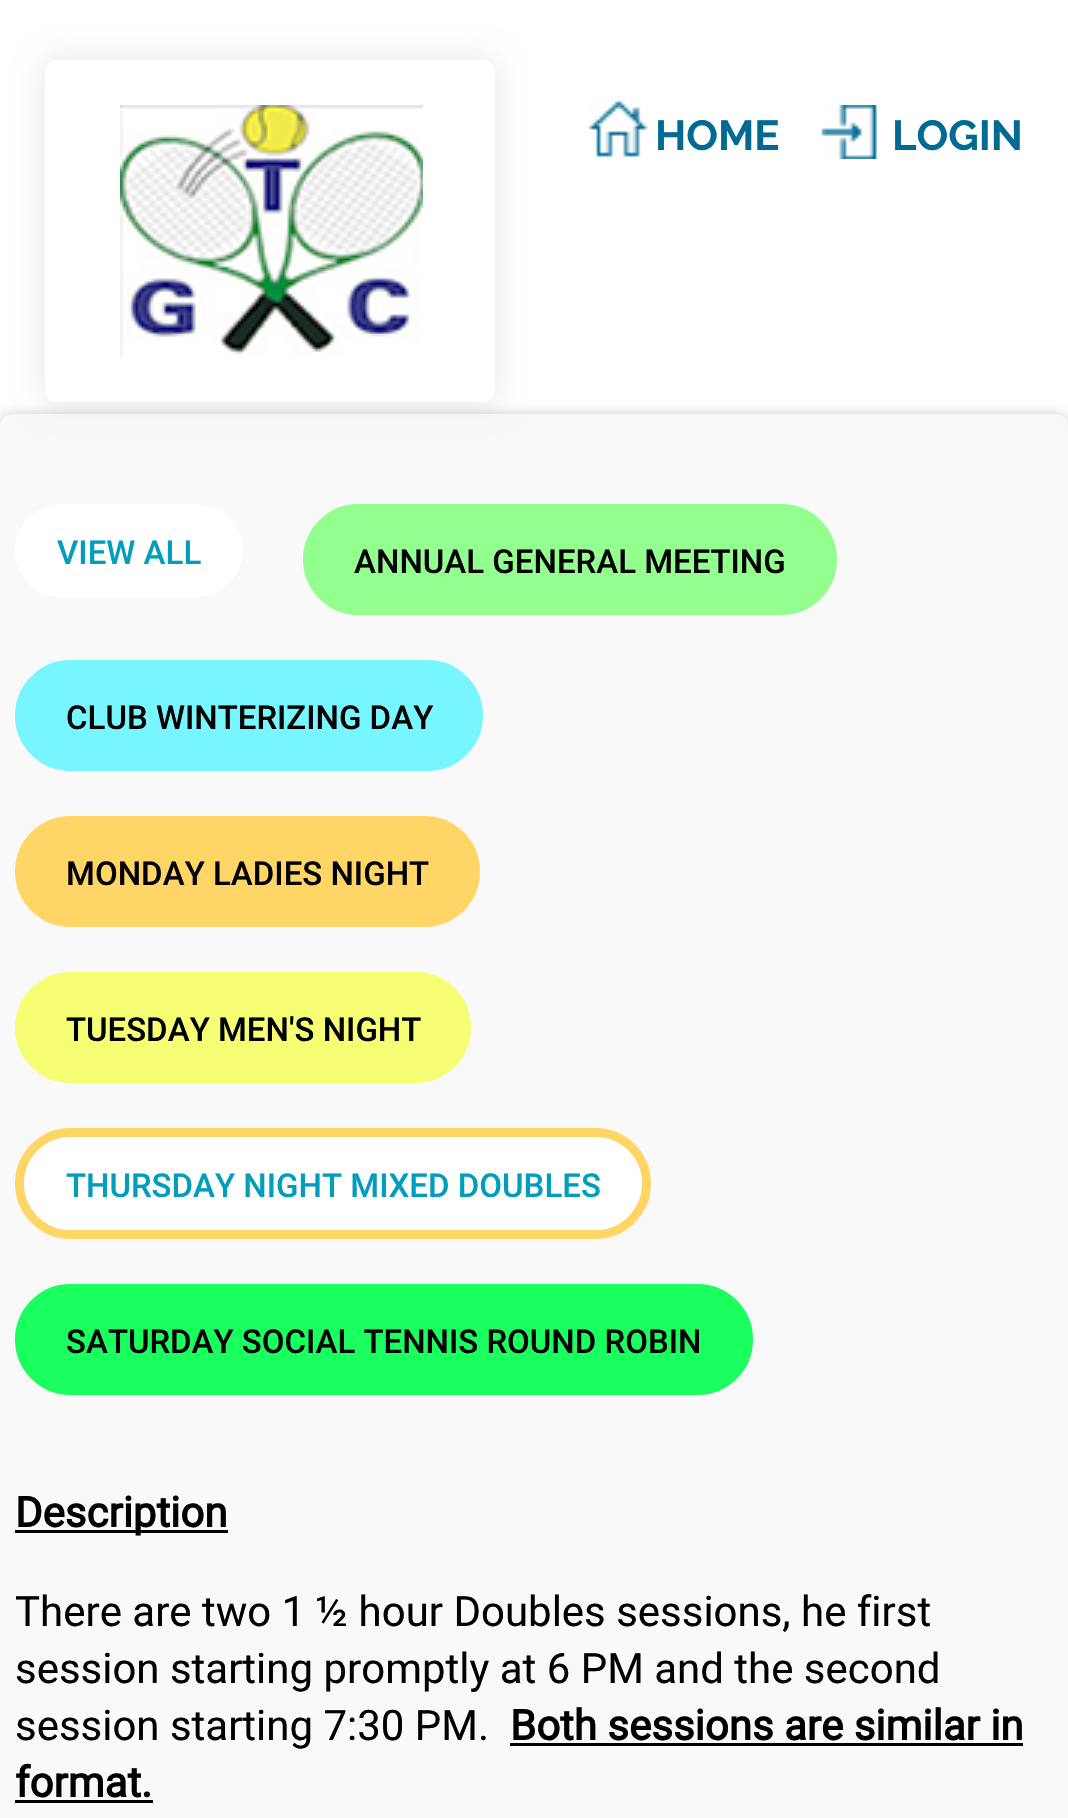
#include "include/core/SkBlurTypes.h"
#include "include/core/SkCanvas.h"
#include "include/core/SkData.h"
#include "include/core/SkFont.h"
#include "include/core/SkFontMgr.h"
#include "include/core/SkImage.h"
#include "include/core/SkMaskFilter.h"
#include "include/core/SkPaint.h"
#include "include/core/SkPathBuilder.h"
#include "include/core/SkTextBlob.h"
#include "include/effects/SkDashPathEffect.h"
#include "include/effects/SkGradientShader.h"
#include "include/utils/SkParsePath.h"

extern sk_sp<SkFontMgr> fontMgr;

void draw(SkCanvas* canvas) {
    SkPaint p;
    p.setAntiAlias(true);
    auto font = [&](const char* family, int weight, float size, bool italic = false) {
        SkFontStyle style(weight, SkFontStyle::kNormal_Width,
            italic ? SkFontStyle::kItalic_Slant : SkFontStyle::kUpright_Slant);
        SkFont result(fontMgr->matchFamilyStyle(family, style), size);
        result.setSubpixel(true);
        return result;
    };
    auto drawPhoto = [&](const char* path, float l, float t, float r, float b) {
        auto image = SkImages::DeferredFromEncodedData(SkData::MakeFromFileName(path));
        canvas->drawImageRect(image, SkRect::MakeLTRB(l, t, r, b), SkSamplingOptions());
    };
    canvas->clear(0xFFFFFFFF);
    p.setColor(0x33000000);
    p.setMaskFilter(SkMaskFilter::MakeBlur(kNormal_SkBlurStyle, 6));
    canvas->drawRoundRect(SkRect::MakeLTRB(0, 414, 1068, 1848), 12, 12, p);
    p.setMaskFilter(nullptr);
    p.setColor(0xFFF9F9F9);
    canvas->drawRoundRect(SkRect::MakeLTRB(0, 414, 1068, 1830), 12, 12, p);
    p.setColor(0x1A000000);
    p.setMaskFilter(SkMaskFilter::MakeBlur(kNormal_SkBlurStyle, 15));
    canvas->drawRoundRect(SkRect::MakeLTRB(45, 60, 495, 402), 12, 12, p);
    p.setMaskFilter(nullptr);
    p.setColor(0xFFFFFFFF);
    canvas->drawRoundRect(SkRect::MakeLTRB(45, 60, 495, 402), 12, 12, p);
    drawPhoto("media/1.png", 120, 105, 423, 357);
    drawPhoto("media/2.png", 588, 99, 648, 157);
    auto font1 = font("Raleway", 700, 42);
    p.setColor(0xFF016A93);
    canvas->drawString("HOME", 655, 150, font1, p);
    drawPhoto("media/3.png", 821, 105, 877, 159);
    canvas->drawString("LOGIN", 892, 150, font1, p);
    p.setColor(0xFFFFFFFF);
    canvas->drawRoundRect(SkRect::MakeLTRB(15, 504, 243, 597), 46.5f, 46.5f, p);
    auto font2 = font("Roboto", 500, 33);
    p.setColor(0xFF009EBD);
    canvas->drawString("VIEW ALL", 57, 564, font2, p);
    p.setColor(0xFF93FF8F);
    canvas->drawRoundRect(SkRect::MakeLTRB(307.5f, 508.5f, 832.5f, 610.5f), 51, 51, p);
    p.setStyle(SkPaint::kStroke_Style);
    p.setStrokeWidth(9);
    canvas->drawRoundRect(SkRect::MakeLTRB(307.5f, 508.5f, 832.5f, 610.5f), 51, 51, p);
    p.setStyle(SkPaint::kFill_Style);
    p.setColor(0xFF000000);
    canvas->drawString("ANNUAL GENERAL MEETING", 354, 573, font2, p);
    p.setColor(0xFF78F6FF);
    canvas->drawRoundRect(SkRect::MakeLTRB(19.5f, 664.5f, 478.5f, 766.5f), 51, 51, p);
    p.setStyle(SkPaint::kStroke_Style);
    canvas->drawRoundRect(SkRect::MakeLTRB(19.5f, 664.5f, 478.5f, 766.5f), 51, 51, p);
    p.setStyle(SkPaint::kFill_Style);
    p.setColor(0xFF000000);
    canvas->drawString("CLUB WINTERIZING DAY", 66, 729, font2, p);
    p.setColor(0xFFFFD666);
    canvas->drawRoundRect(SkRect::MakeLTRB(19.5f, 820.5f, 475.5f, 922.5f), 51, 51, p);
    p.setStyle(SkPaint::kStroke_Style);
    canvas->drawRoundRect(SkRect::MakeLTRB(19.5f, 820.5f, 475.5f, 922.5f), 51, 51, p);
    p.setStyle(SkPaint::kFill_Style);
    p.setColor(0xFF000000);
    canvas->drawString("MONDAY LADIES NIGHT", 66, 885, font2, p);
    p.setColor(0xFFF6FF73);
    canvas->drawRoundRect(SkRect::MakeLTRB(19.5f, 976.5f, 466.5f, 1078.5f), 51, 51, p);
    p.setStyle(SkPaint::kStroke_Style);
    canvas->drawRoundRect(SkRect::MakeLTRB(19.5f, 976.5f, 466.5f, 1078.5f), 51, 51, p);
    p.setStyle(SkPaint::kFill_Style);
    p.setColor(0xFF000000);
    canvas->drawString("TUESDAY MEN'S NIGHT", 66, 1041, font2, p);
    p.setColor(0xFFFFFFFF);
    canvas->drawRoundRect(SkRect::MakeLTRB(19.5f, 1132.5f, 646.5f, 1234.5f), 51, 51, p);
    p.setStyle(SkPaint::kStroke_Style);
    p.setColor(0xFFFFD666);
    canvas->drawRoundRect(SkRect::MakeLTRB(19.5f, 1132.5f, 646.5f, 1234.5f), 51, 51, p);
    p.setStyle(SkPaint::kFill_Style);
    p.setColor(0xFF009EBD);
    canvas->drawString("THURSDAY NIGHT MIXED DOUBLES", 66, 1197, font2, p);
    p.setColor(0xFF19FF5E);
    canvas->drawRoundRect(SkRect::MakeLTRB(19.5f, 1288.5f, 748.5f, 1390.5f), 51, 51, p);
    p.setStyle(SkPaint::kStroke_Style);
    canvas->drawRoundRect(SkRect::MakeLTRB(19.5f, 1288.5f, 748.5f, 1390.5f), 51, 51, p);
    p.setStyle(SkPaint::kFill_Style);
    p.setColor(0xFF000000);
    canvas->drawString("SATURDAY SOCIAL TENNIS ROUND ROBIN", 66, 1353, font2, p);
    canvas->drawRect(SkRect::MakeLTRB(15, 1530, 228, 1533), p);
    auto font3 = font("Roboto", 700, 42);
    canvas->drawString("Description", 15, 1527, font3, p);
    auto font4 = font("Roboto", 400, 42);
    {
        const struct { const char* s; float x, y; } items[] = {
            {"There are two 1 ½ hour Doubles sessions, he first", 15, 1626},
            {"session starting promptly at 6 PM and the second", 15, 1683},
            {"session starting 7:30 PM.", 15, 1740},
        };
        for (auto [s, x, y] : items) {
            canvas->drawString(s, x, y, font4, p);
        }
    }
    canvas->drawString("Both sessions are similar in", 510, 1740, font3, p);
    canvas->drawRect(SkRect::MakeLTRB(510, 1743, 1023, 1746), p);
    canvas->drawString("format.", 15, 1797, font3, p);
    canvas->drawRect(SkRect::MakeLTRB(15, 1800, 153, 1803), p);
}
